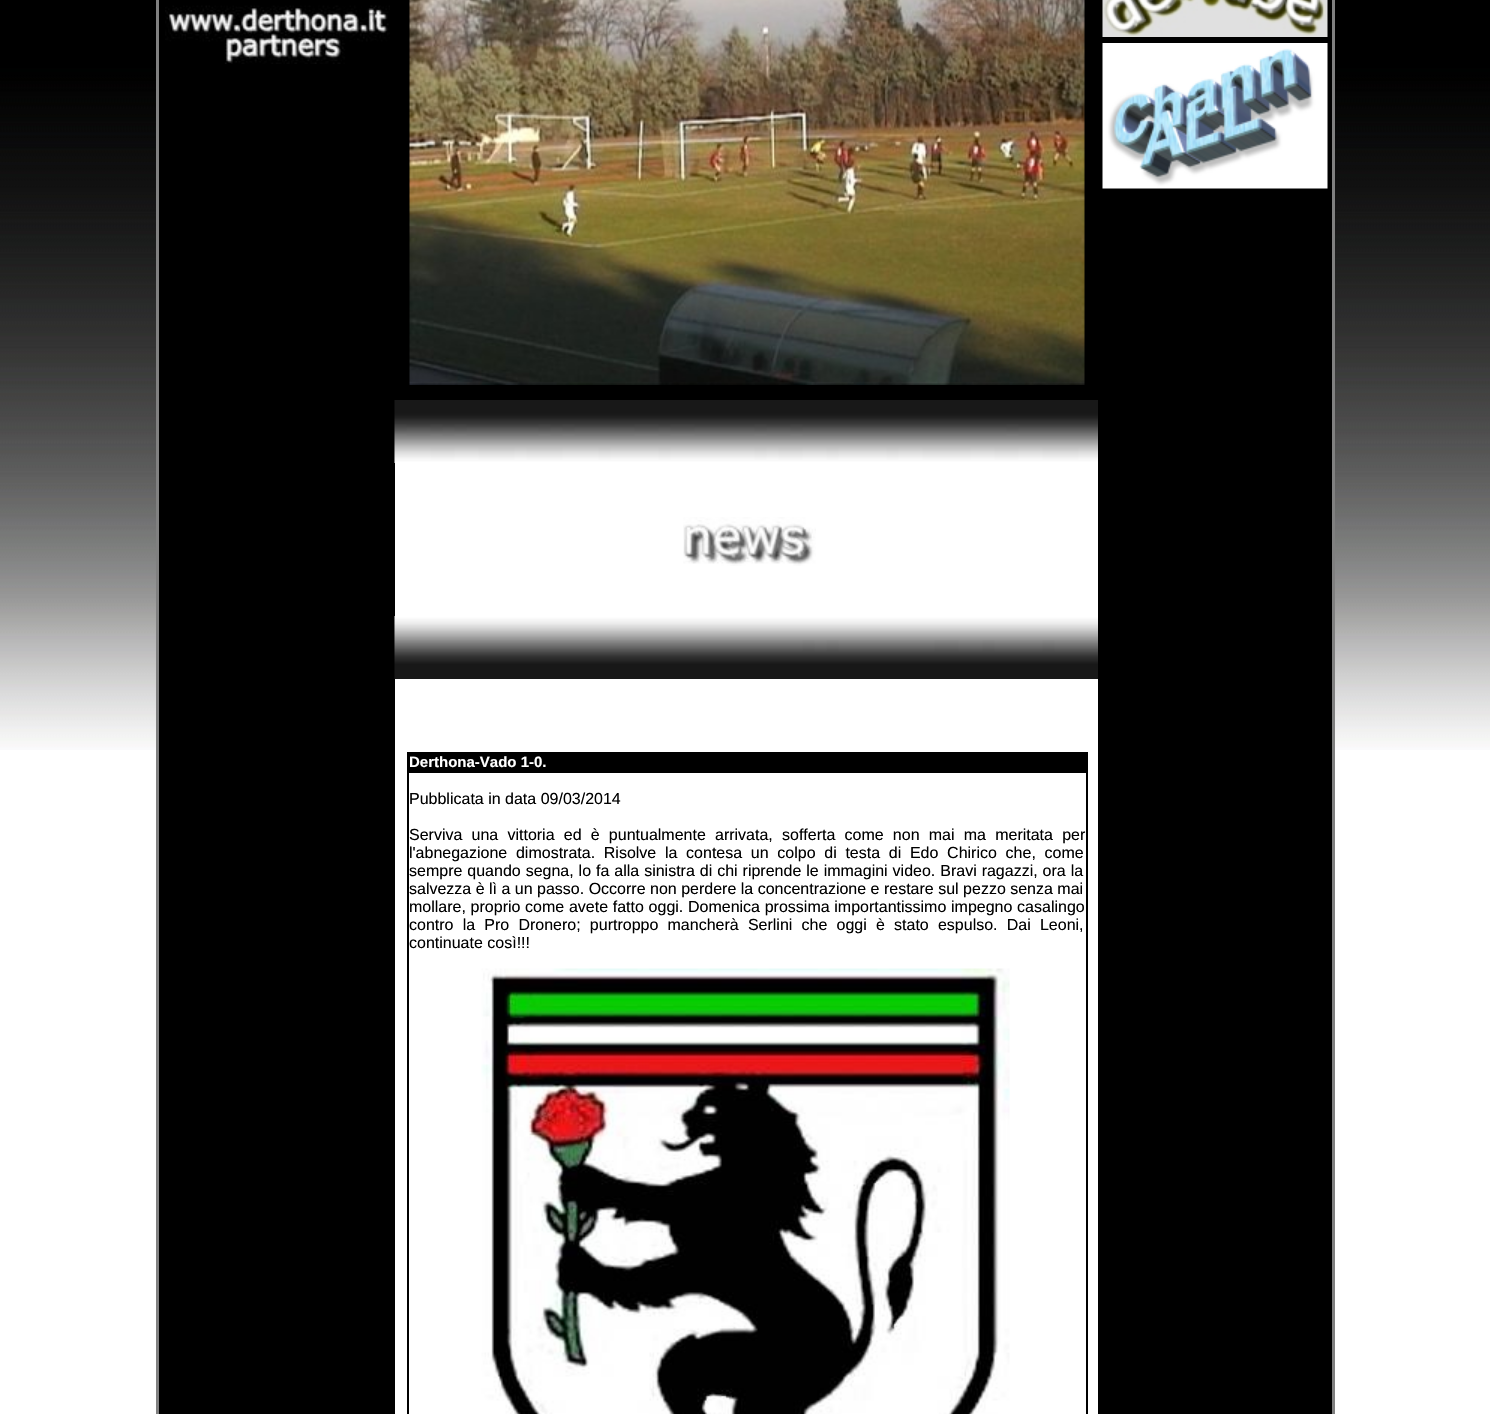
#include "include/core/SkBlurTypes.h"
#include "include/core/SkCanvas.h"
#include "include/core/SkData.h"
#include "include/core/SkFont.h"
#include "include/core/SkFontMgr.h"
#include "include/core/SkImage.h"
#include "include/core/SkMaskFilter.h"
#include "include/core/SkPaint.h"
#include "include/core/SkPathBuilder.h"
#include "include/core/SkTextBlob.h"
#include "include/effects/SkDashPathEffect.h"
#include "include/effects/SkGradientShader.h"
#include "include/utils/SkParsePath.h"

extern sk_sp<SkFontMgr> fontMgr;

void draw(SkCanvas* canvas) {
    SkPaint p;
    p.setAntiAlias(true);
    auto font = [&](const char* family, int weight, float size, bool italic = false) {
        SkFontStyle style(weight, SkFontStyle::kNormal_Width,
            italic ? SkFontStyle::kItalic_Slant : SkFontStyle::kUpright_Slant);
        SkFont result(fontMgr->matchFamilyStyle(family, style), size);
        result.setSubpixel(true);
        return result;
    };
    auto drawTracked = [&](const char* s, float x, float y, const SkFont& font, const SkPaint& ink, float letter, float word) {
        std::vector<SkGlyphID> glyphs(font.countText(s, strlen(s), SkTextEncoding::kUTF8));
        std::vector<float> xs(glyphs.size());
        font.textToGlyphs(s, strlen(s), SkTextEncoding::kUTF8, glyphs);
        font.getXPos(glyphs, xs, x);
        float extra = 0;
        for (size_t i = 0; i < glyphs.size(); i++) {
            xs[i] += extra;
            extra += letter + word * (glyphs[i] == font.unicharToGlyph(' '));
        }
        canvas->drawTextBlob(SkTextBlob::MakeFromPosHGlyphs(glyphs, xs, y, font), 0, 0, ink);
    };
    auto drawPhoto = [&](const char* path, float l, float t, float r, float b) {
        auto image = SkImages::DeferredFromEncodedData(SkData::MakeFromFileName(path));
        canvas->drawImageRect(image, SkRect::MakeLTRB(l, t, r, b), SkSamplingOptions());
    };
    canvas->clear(0xFFFFFFFF);
    drawPhoto("media/1.png", 0, 0, 1490, 750);
    p.setStyle(SkPaint::kStroke_Style);
    p.setStrokeWidth(2);
    p.setColor(0xFF808080);
    canvas->drawRect(SkRect::MakeLTRB(157, -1, 1334, 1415), p);
    canvas->drawRect(SkRect::MakeLTRB(159, -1, 1333, 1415), p);
    p.setStyle(SkPaint::kFill_Style);
    p.setColor(0xFF000000);
    canvas->drawRect(SkRect::MakeLTRB(159, 0, 1332, 1414), p);
    drawPhoto("media/2.png", 165, 5, 390, 64);
    drawPhoto("media/3.png", 1102, 0, 1328, 37);
    drawPhoto("media/4.png", 1102, 43, 1328, 189);
    p.setColor(0xFFFFFFFF);
    canvas->drawRect(SkRect::MakeLTRB(395, 463, 1098, 1414), p);
    drawPhoto("media/5.png", 409, 0, 1085, 385);
    drawPhoto("media/6.png", 394, 400, 1098, 463);
    drawPhoto("media/7.png", 683, 517, 816, 566);
    drawPhoto("media/8.png", 394, 616, 1098, 679);
    p.setStyle(SkPaint::kStroke_Style);
    p.setColor(0xFF000000);
    canvas->drawRect(SkRect::MakeLTRB(408, 753, 1087, 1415), p);
    p.setStyle(SkPaint::kFill_Style);
    canvas->drawRect(SkRect::MakeLTRB(409, 754, 1086, 773), p);
    auto font1 = font("Liberation Sans", 700, 15);
    p.setColor(0xFFFFFFFF);
    canvas->drawString("Derthona-Vado 1-0.", 409, 767, font1, p);
    auto font2 = font("Liberation Sans", 400, 16);
    p.setColor(0xFF000000);
    canvas->drawString("Pubblicata in data 09/03/2014", 409, 804, font2, p);
    drawTracked("Serviva una vittoria ed è puntualmente arrivata, sofferta come non mai ma meritata per", 409, 840, font2, p, 0, 4.75f);
    drawTracked("l'abnegazione dimostrata. Risolve la contesa un colpo di testa di Edo Chirico che, come", 409, 858, font2, p, 0, 4.25f);
    drawTracked("sempre quando segna, lo fa alla sinistra di chi riprende le immagini video. Bravi ragazzi, ora la", 409, 876, font2, p, 0, 0.5f);
    canvas->drawString("salvezza è lì a un passo. Occorre non perdere la concentrazione e restare sul pezzo senza mai", 409, 894, font2, p);
    drawTracked("mollare, proprio come avete fatto oggi. Domenica prossima importantissimo impegno casalingo", 409, 912, font2, p, 0, 0.25f);
    drawTracked("contro la Pro Dronero; purtroppo mancherà Serlini che oggi è stato espulso. Dai Leoni,", 409, 930, font2, p, 0, 4.75f);
    canvas->drawString("continuate così!!!", 409, 948, font2, p);
    drawPhoto("media/9.png", 481, 968, 1010, 1414);
}
